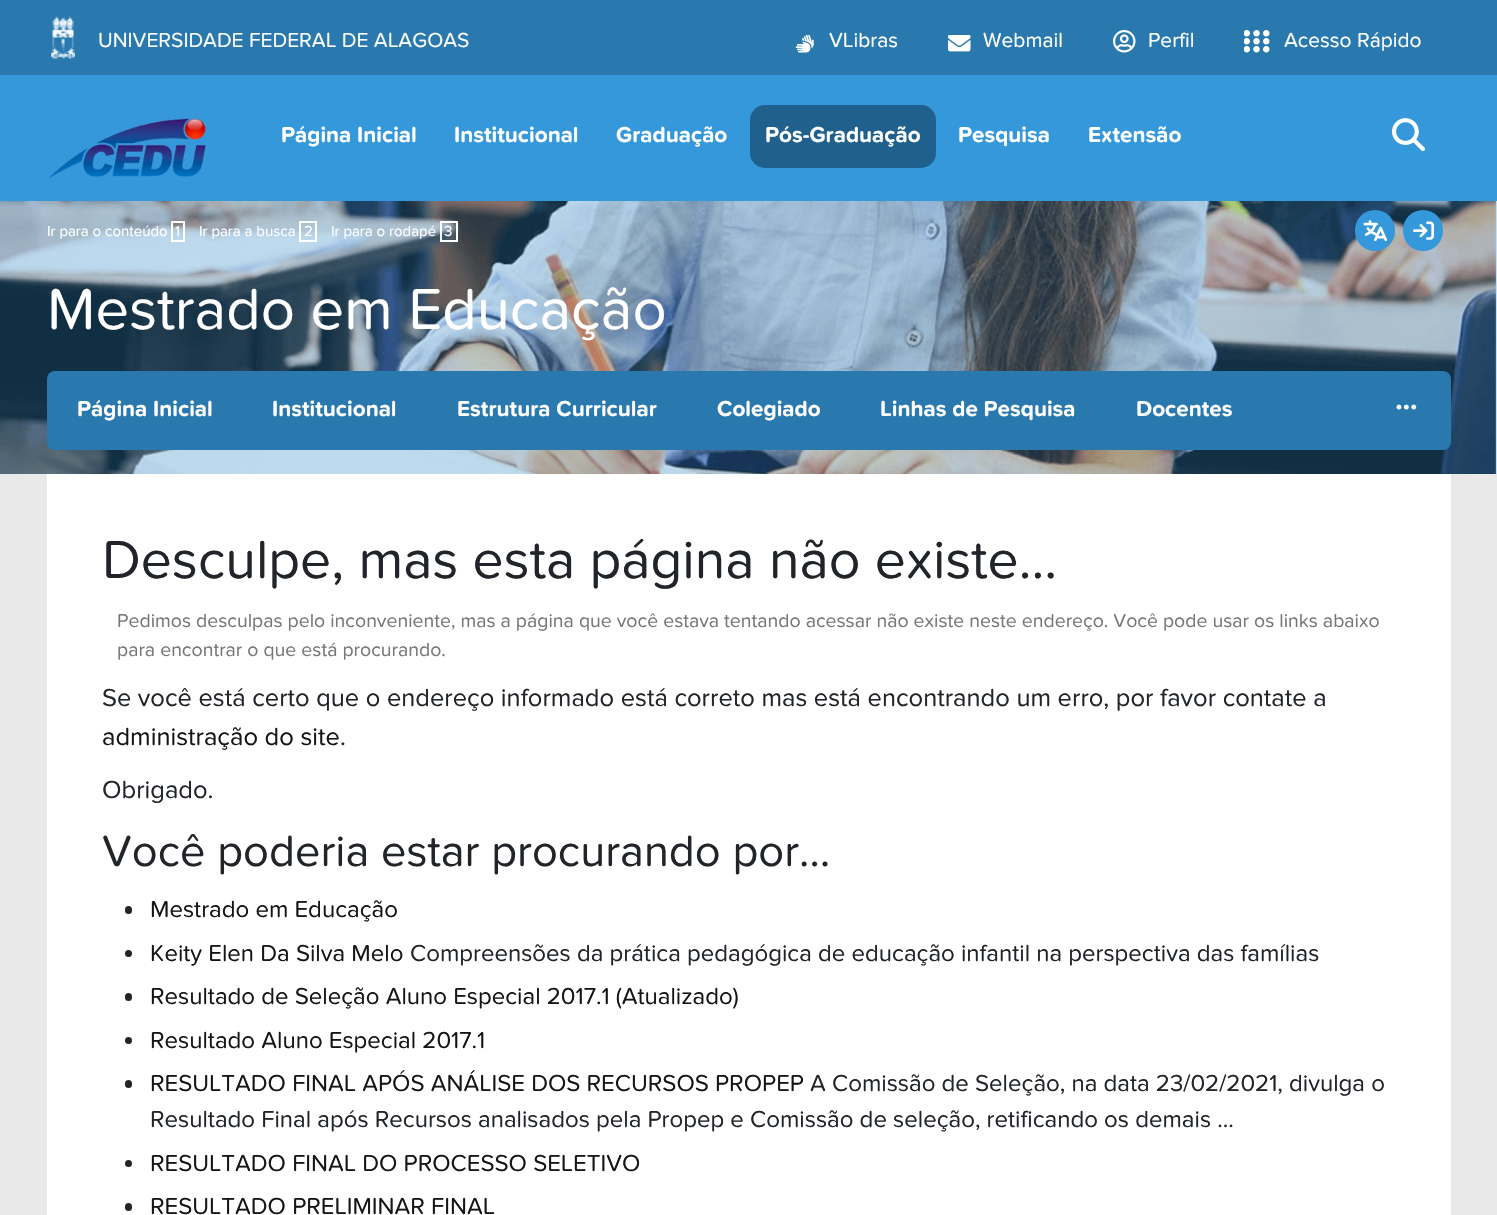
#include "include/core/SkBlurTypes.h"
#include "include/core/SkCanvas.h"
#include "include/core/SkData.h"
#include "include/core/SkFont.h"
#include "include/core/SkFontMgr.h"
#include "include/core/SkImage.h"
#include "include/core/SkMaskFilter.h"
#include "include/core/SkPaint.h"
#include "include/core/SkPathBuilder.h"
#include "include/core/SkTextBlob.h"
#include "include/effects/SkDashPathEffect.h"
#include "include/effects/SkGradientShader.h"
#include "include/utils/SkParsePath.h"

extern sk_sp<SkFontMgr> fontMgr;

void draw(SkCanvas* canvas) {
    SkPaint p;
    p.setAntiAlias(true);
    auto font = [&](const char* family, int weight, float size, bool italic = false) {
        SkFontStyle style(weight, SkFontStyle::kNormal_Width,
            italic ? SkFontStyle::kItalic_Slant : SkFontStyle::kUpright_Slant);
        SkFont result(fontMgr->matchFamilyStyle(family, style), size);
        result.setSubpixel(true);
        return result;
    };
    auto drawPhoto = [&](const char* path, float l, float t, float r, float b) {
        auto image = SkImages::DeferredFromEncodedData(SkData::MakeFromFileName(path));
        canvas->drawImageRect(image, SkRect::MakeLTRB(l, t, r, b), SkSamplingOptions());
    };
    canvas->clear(0xFFE9E9E9);
    p.setColor(0xFF2979AF);
    canvas->drawRect(SkRect::MakeLTRB(0, 0, 1497, 75), p);
    drawPhoto("media/1.png", 51, 16, 75, 59);
    auto font1 = font("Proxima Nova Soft", 400, 21);
    p.setColor(0xFFFFFFFF);
    canvas->drawString("UNIVERSIDADE FEDERAL DE ALAGOAS", 98, 47, font1, p);
    drawPhoto("media/2.png", 795, 35, 814, 53);
    canvas->drawString("VLibras", 829, 47, font1, p);
    drawPhoto("media/3.png", 948, 35, 971, 52);
    canvas->drawString("Webmail", 983, 47, font1, p);
    drawPhoto("media/4.png", 1113, 30, 1136, 53);
    canvas->drawString("Perfil", 1148, 47, font1, p);
    drawPhoto("media/5.png", 1244, 30, 1270, 53);
    canvas->drawString("Acesso Rápido", 1284, 47, font1, p);
    p.setColor(0xFF3498DB);
    canvas->drawRect(SkRect::MakeLTRB(0, 75, 1497, 201), p);
    drawPhoto("media/6.png", 48, 118, 206, 179);
    auto font2 = font("Proxima Nova Soft", 700, 22.5f);
    p.setColor(0xFFFFFFFF);
    {
        const struct { const char* s; float x, y; } items[] = {
            {"Página Inicial", 281, 142},
            {"Institucional", 454, 142},
            {"Graduação", 616, 142},
        };
        for (auto [s, x, y] : items) {
            canvas->drawString(s, x, y, font2, p);
        }
    }
    p.setColor(0xFF20608C);
    canvas->drawRoundRect(SkRect::MakeLTRB(750, 105, 936, 168), 15, 15, p);
    p.setColor(0xFFFFFFFF);
    {
        const struct { const char* s; float x, y; } items[] = {
            {"Pós-Graduação", 765, 142},
            {"Pesquisa", 958, 142},
            {"Extensão", 1088, 142},
        };
        for (auto [s, x, y] : items) {
            canvas->drawString(s, x, y, font2, p);
        }
    }
    drawPhoto("media/7.png", 1392, 118, 1425, 152);
    drawPhoto("media/8.png", 0, 201, 1497, 474);
    auto font3 = font("Proxima Nova Soft", 400, 15);
    canvas->drawString("Ir para o conteúdo", 47, 236, font3, p);
    p.setStyle(SkPaint::kStroke_Style);
    p.setStrokeWidth(2);
    canvas->drawRect(SkRect::MakeLTRB(172, 222, 184, 241), p);
    p.setStyle(SkPaint::kFill_Style);
    canvas->drawString("1", 175, 236, font3, p);
    canvas->drawString("Ir para a busca", 199, 236, font3, p);
    p.setStyle(SkPaint::kStroke_Style);
    canvas->drawRect(SkRect::MakeLTRB(300, 222, 316, 241), p);
    p.setStyle(SkPaint::kFill_Style);
    canvas->drawString("2", 304, 236, font3, p);
    canvas->drawString("Ir para o rodapé", 331, 236, font3, p);
    p.setStyle(SkPaint::kStroke_Style);
    canvas->drawRect(SkRect::MakeLTRB(441, 222, 457, 241), p);
    p.setStyle(SkPaint::kFill_Style);
    canvas->drawString("3", 444, 236, font3, p);
    p.setColor(0xFF3498DB);
    canvas->drawRoundRect(SkRect::MakeLTRB(1355, 210, 1395, 251), 20, 20, p);
    drawPhoto("media/9.png", 1363, 220, 1388, 242);
    canvas->drawRoundRect(SkRect::MakeLTRB(1403, 210, 1443, 251), 20, 20, p);
    drawPhoto("media/10.png", 1413, 221, 1434, 240);
    auto font4 = font("Proxima Nova Soft", 400, 60);
    p.setColor(0xFFFFFFFF);
    canvas->drawString("Mestrado em Educação", 47, 329, font4, p);
    p.setColor(0xFF2979AF);
    canvas->drawRoundRect(SkRect::MakeLTRB(47, 371, 1451, 450), 8, 8, p);
    p.setColor(0xFFFFFFFF);
    {
        const struct { const char* s; float x, y; } items[] = {
            {"Página Inicial", 77, 416},
            {"Institucional", 272, 416},
            {"Estrutura Curricular", 457, 416},
            {"Colegiado", 717, 416},
            {"Linhas de Pesquisa", 880, 416},
            {"Docentes", 1136, 416},
        };
        for (auto [s, x, y] : items) {
            canvas->drawString(s, x, y, font2, p);
        }
    }
    drawPhoto("media/11.png", 1396, 404, 1417, 410);
    canvas->drawRect(SkRect::MakeLTRB(47, 474, 1451, 1215), p);
    auto font5 = font("Proxima Nova Soft", 400, 55.5f);
    p.setColor(0xFF212529);
    canvas->drawString("Desculpe, mas esta página não existe…", 102, 578, font5, p);
    auto font6 = font("Proxima Nova Soft", 400, 19.5f);
    p.setColor(0xFF777777);
    canvas->drawString("Pedimos desculpas pelo inconveniente, mas a página que você estava tentando acessar não existe neste endereço. Você pode usar os links abaixo", 117, 627, font6, p);
    canvas->drawString("para encontrar o que está procurando.", 117, 656, font6, p);
    auto font7 = font("Proxima Nova Soft", 400, 25.5f);
    p.setColor(0xFF212529);
    canvas->drawString("Se você está certo que o endereço informado está correto mas está encontrando um erro, por favor contate a", 102, 706, font7, p);
    p.setColor(0xFF151515);
    canvas->drawString("administração do site", 102, 745, font7, p);
    p.setColor(0xFF212529);
    canvas->drawString(".", 340, 745, font7, p);
    canvas->drawString("Obrigado.", 102, 798, font7, p);
    auto font8 = font("Proxima Nova Soft", 400, 45.25f);
    canvas->drawString("Você poderia estar procurando por…", 102, 866, font8, p);
    canvas->drawRoundRect(SkRect::MakeLTRB(125, 906, 132, 914), 3.5f, 3.5f, p);
    auto font9 = font("Proxima Nova Soft", 400, 24);
    p.setColor(0xFF151515);
    canvas->drawString("Mestrado em Educação", 150, 917, font9, p);
    p.setColor(0xFF212529);
    canvas->drawCircle(128.5f, 953.5f, 3.5f, p);
    p.setColor(0xFF151515);
    canvas->drawString("Keity Elen Da Silva Melo", 150, 961, font9, p);
    p.setColor(0xFF212529);
    canvas->drawString("Compreensões da prática pedagógica de educação infantil na perspectiva das famílias", 410, 961, font9, p);
    canvas->drawRoundRect(SkRect::MakeLTRB(125, 993, 132, 1001), 3.5f, 3.5f, p);
    p.setColor(0xFF151515);
    canvas->drawString("Resultado de Seleção Aluno Especial 2017.1 (Atualizado)", 150, 1004, font9, p);
    p.setColor(0xFF212529);
    canvas->drawCircle(128.5f, 1040.5f, 3.5f, p);
    p.setColor(0xFF151515);
    canvas->drawString("Resultado Aluno Especial 2017.1", 150, 1048, font9, p);
    p.setColor(0xFF212529);
    canvas->drawRoundRect(SkRect::MakeLTRB(125, 1080, 132, 1088), 3.5f, 3.5f, p);
    p.setColor(0xFF151515);
    canvas->drawString("RESULTADO FINAL APÓS ANÁLISE DOS RECURSOS PROPEP", 150, 1091, font9, p);
    p.setColor(0xFF212529);
    canvas->drawString("A Comissão de Seleção, na data 23/02/2021, divulga o", 810, 1091, font9, p);
    canvas->drawString("Resultado Final após Recursos analisados pela Propep e Comissão de seleção, retificando os demais ...", 150, 1127, font9, p);
    canvas->drawCircle(128.5f, 1163.5f, 3.5f, p);
    p.setColor(0xFF151515);
    canvas->drawString("RESULTADO FINAL DO PROCESSO SELETIVO", 150, 1171, font9, p);
    p.setColor(0xFF212529);
    canvas->drawRoundRect(SkRect::MakeLTRB(125, 1203, 132, 1211), 3.5f, 3.5f, p);
    p.setColor(0xFF151515);
    canvas->drawString("RESULTADO PRELIMINAR FINAL", 150, 1214, font9, p);
}
